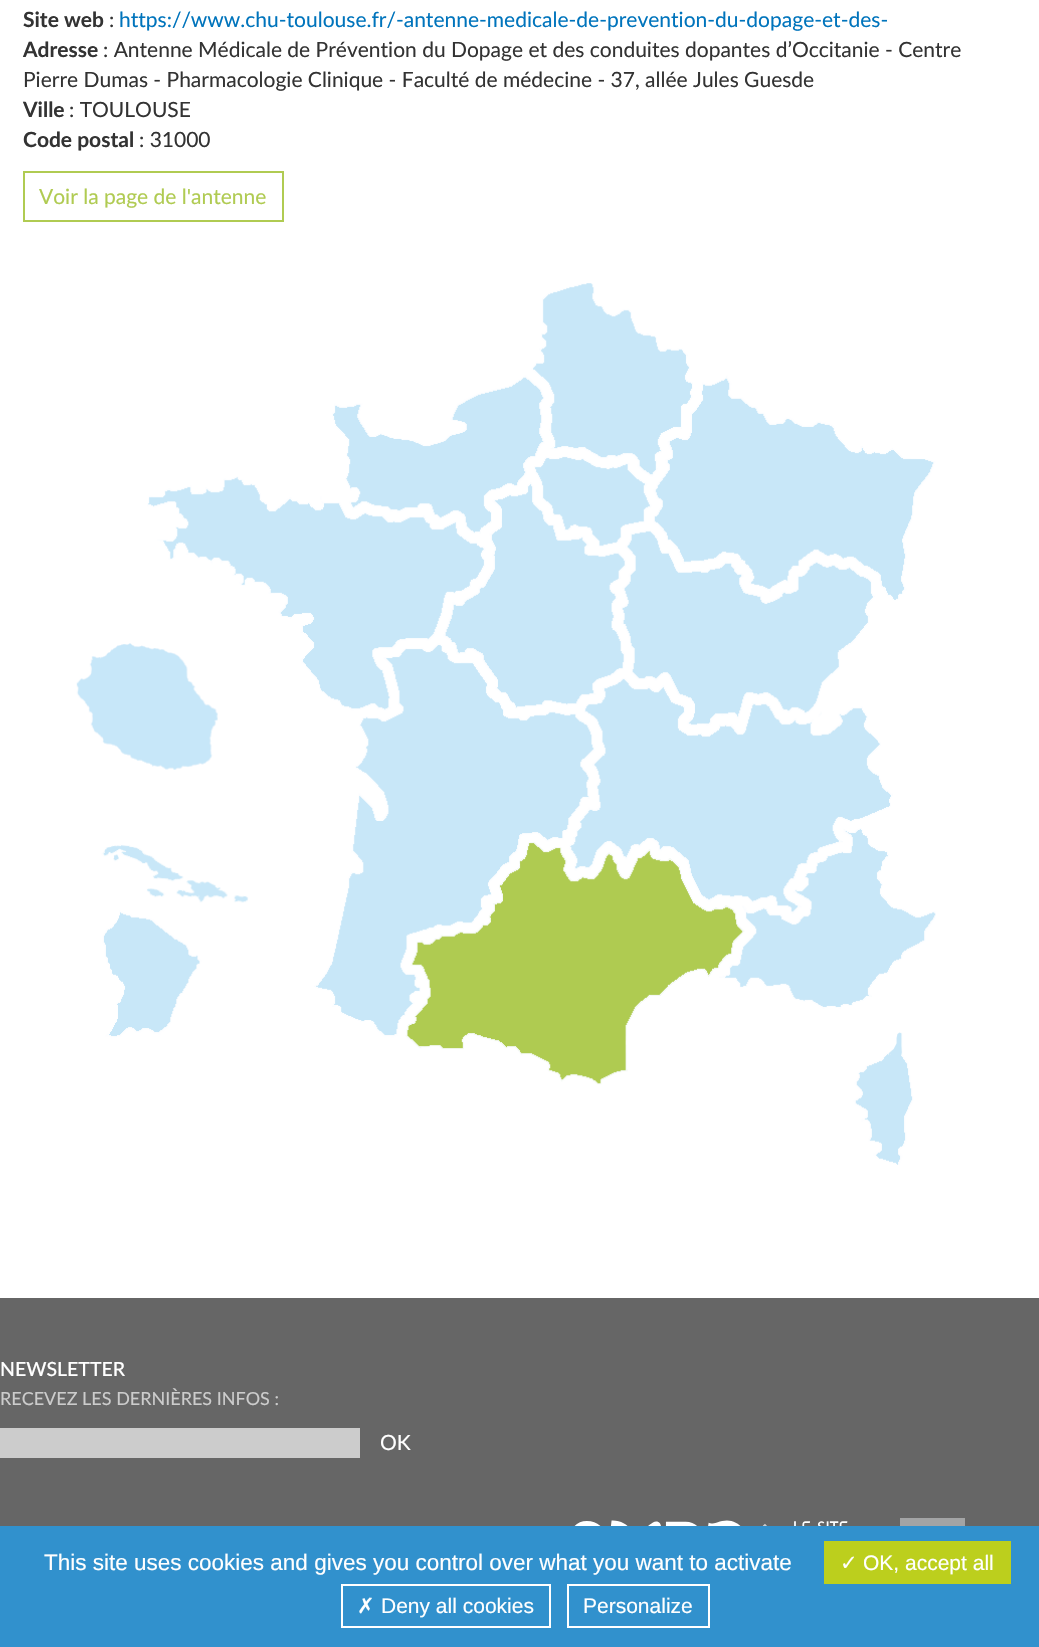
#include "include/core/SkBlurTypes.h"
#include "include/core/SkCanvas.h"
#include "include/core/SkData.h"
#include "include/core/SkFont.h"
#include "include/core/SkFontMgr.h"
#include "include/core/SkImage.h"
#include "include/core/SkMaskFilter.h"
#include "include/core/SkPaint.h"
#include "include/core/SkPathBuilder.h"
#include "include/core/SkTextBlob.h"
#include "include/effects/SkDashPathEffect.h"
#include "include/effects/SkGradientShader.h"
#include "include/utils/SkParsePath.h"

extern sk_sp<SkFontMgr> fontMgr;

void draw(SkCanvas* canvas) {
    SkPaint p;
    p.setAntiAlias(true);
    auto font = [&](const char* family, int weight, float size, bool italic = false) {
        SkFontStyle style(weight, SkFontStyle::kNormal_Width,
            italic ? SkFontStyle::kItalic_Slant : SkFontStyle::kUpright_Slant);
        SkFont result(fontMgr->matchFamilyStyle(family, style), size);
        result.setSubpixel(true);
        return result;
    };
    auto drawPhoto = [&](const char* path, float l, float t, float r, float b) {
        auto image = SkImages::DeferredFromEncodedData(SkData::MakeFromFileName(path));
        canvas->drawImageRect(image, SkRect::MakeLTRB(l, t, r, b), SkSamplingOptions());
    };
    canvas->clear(0xFFFFFFFF);
    auto font1 = font("Lato", 700, 21);
    p.setColor(0xFF333333);
    canvas->drawString("Site web", 23, 27, font1, p);
    auto font2 = font("Lato", 400, 21);
    canvas->drawString(":", 109, 27, font2, p);
    p.setColor(0xFF0074BC);
    canvas->drawString("https://www.chu-toulouse.fr/-antenne-medicale-de-prevention-du-dopage-et-des-", 119, 27, font2, p);
    p.setColor(0xFF333333);
    canvas->drawString("Adresse", 23, 57, font1, p);
    canvas->drawString(": Antenne Médicale de Prévention du Dopage et des conduites dopantes d’Occitanie - Centre", 103, 57, font2, p);
    canvas->drawString("Pierre Dumas - Pharmacologie Clinique - Faculté de médecine - 37, allée Jules Guesde", 23, 87, font2, p);
    canvas->drawString("Ville", 23, 117, font1, p);
    canvas->drawString(": TOULOUSE", 69, 117, font2, p);
    canvas->drawString("Code postal", 23, 147, font1, p);
    canvas->drawString(": 31000", 139, 147, font2, p);
    p.setStyle(SkPaint::kStroke_Style);
    p.setStrokeWidth(2);
    p.setColor(0xFFB0CB52);
    canvas->drawRect(SkRect::MakeLTRB(24, 172, 283, 221), p);
    p.setStyle(SkPaint::kFill_Style);
    canvas->drawString("Voir la page de l'antenne", 39, 204, font2, p);
    drawPhoto("media/1.png", 76, 283, 936, 1165);
    p.setColor(0xFF666666);
    canvas->drawRect(SkRect::MakeLTRB(0, 1298, 1039, 1526), p);
    auto font3 = font("Lato", 500, 19.5f);
    p.setColor(0xFFFFFFFF);
    canvas->drawString("NEWSLETTER", 0, 1376, font3, p);
    auto font4 = font("Lato", 400, 18);
    p.setColor(0xFFCCCCCC);
    canvas->drawString("RECEVEZ LES DERNIÈRES INFOS :", 0, 1405, font4, p);
    canvas->drawRect(SkRect::MakeLTRB(0, 1428, 360, 1458), p);
    p.setColor(0xFFFFFFFF);
    canvas->drawString("OK", 380, 1450, font2, p);
    drawPhoto("media/2.png", 574, 1520, 848, 1526);
    drawPhoto("media/3.png", 900, 1518, 965, 1526);
    p.setColor(0xFF3191CD);
    canvas->drawRect(SkRect::MakeLTRB(0, 1526, 1039, 1647), p);
    auto font5 = font("Liberation Sans", 400, 22.5f);
    p.setColor(0xFFFFFFFF);
    canvas->drawString("This site uses cookies and gives you control over what you want to activate", 44, 1570, font5, p);
    p.setColor(0xFFBCCF1D);
    canvas->drawRect(SkRect::MakeLTRB(824, 1541, 1011, 1584), p);
    auto font6 = font("DejaVu Sans", 400, 21);
    p.setColor(0xFFFFFFFF);
    canvas->drawString("✓", 840, 1570, font6, p);
    auto font7 = font("Liberation Sans", 400, 21);
    canvas->drawString("OK, accept all", 863, 1570, font7, p);
    p.setStyle(SkPaint::kStroke_Style);
    canvas->drawRect(SkRect::MakeLTRB(342, 1585, 550, 1627), p);
    p.setStyle(SkPaint::kFill_Style);
    canvas->drawString("✗", 357, 1613, font6, p);
    canvas->drawString("Deny all cookies", 381, 1613, font7, p);
    p.setStyle(SkPaint::kStroke_Style);
    canvas->drawRect(SkRect::MakeLTRB(568, 1585, 709, 1627), p);
    p.setStyle(SkPaint::kFill_Style);
    canvas->drawString("Personalize", 583, 1613, font7, p);
}
